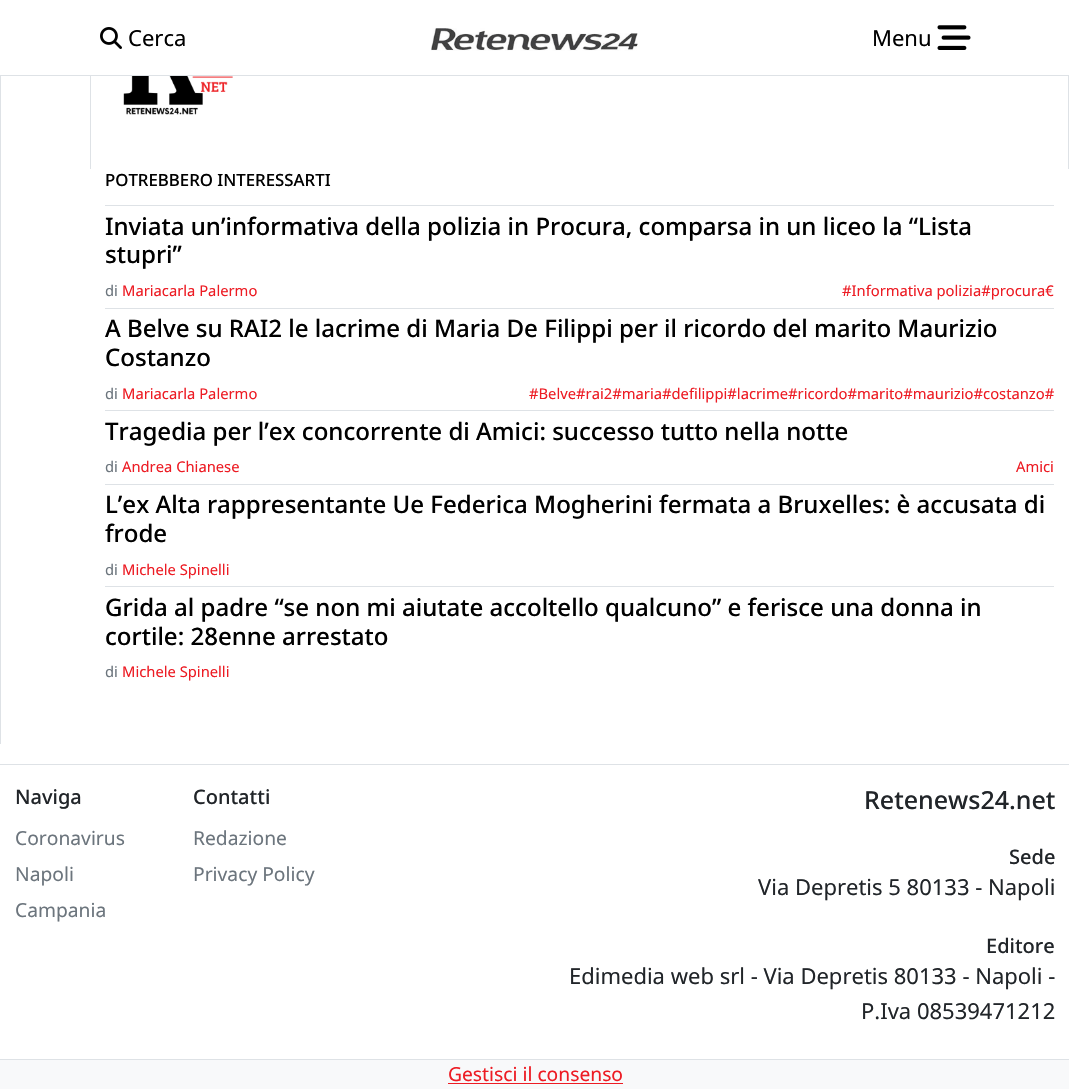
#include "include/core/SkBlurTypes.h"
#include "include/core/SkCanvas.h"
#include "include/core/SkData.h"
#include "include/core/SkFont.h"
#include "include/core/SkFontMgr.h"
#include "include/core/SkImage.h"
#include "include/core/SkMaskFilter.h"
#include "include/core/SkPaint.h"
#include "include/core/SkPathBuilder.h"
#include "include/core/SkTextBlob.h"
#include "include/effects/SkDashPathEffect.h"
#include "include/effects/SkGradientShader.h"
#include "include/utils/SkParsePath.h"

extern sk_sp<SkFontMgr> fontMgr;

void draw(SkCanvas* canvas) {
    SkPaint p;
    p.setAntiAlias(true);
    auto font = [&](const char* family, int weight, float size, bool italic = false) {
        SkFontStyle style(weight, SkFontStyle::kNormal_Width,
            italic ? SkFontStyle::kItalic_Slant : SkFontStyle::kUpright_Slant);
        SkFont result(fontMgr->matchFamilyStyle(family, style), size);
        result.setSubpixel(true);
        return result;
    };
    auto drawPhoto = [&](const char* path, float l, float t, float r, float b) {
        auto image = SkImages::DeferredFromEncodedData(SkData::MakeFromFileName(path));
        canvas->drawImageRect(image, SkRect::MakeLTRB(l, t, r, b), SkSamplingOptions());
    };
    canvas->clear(0xFFFFFFFF);
    p.setColor(0xFFDEE2E6);
    canvas->drawRect(SkRect::MakeLTRB(0, 75, 1069, 76), p);
    drawPhoto("media/1.png", 100, 27, 122, 49);
    auto font1 = font("Noto Sans", 400, 22);
    p.setColor(0xFF000000);
    canvas->drawString("Cerca", 128, 46, font1, p);
    drawPhoto("media/2.png", 431, 28, 638, 51);
    canvas->drawString("Menu", 872, 46, font1, p);
    drawPhoto("media/3.png", 937, 25, 971, 50);
    {
        const struct { float l, t, r, b; SkColor color; } items[] = {
            {0, 76, 1, 744, 0xFFDEE2E6},
            {1068, 76, 1069, 169, 0xFFDEE2E6},
            {90, 76, 91, 169, 0xFFDEE2E6},
        };
        for (auto [l, t, r, b, color] : items) {
            p.setColor(color);
            canvas->drawRect(SkRect::MakeLTRB(l, t, r, b), p);
        }
    }
    drawPhoto("media/4.png", 123, 76, 233, 115);
    auto font2 = font("Noto Sans", 500, 16.8f);
    p.setColor(0xFF000000);
    canvas->drawString("POTREBBERO INTERESSARTI", 105, 186, font2, p);
    p.setColor(0xFFDEE2E6);
    canvas->drawRect(SkRect::MakeLTRB(105, 205, 1054, 206), p);
    auto font3 = font("Noto Sans", 500, 24.05f);
    p.setColor(0xFF000000);
    canvas->drawString("Inviata un’informativa della polizia in Procura, comparsa in un liceo la “Lista", 105, 235, font3, p);
    canvas->drawString("stupri”", 105, 263, font3, p);
    auto font4 = font("Noto Sans", 400, 14.75f);
    p.setColor(0xFF6C757D);
    canvas->drawString("di", 105, 296, font4, p);
    p.setColor(0xFFED1C24);
    canvas->drawString("Mariacarla Palermo", 122, 296, font4, p);
    canvas->drawString("#Informativa polizia#procura€", 842, 296, font4, p);
    p.setColor(0xFFDEE2E6);
    canvas->drawRect(SkRect::MakeLTRB(105, 308, 1054, 309), p);
    p.setColor(0xFF000000);
    canvas->drawString("A Belve su RAI2 le lacrime di Maria De Filippi per il ricordo del marito Maurizio", 105, 337, font3, p);
    canvas->drawString("Costanzo", 105, 366, font3, p);
    p.setColor(0xFF6C757D);
    canvas->drawString("di", 105, 399, font4, p);
    p.setColor(0xFFED1C24);
    canvas->drawString("Mariacarla Palermo", 122, 399, font4, p);
    canvas->drawString("#Belve#rai2#maria#defilippi#lacrime#ricordo#marito#maurizio#costanzo#", 529, 399, font4, p);
    p.setColor(0xFFDEE2E6);
    canvas->drawRect(SkRect::MakeLTRB(105, 410, 1054, 411), p);
    p.setColor(0xFF000000);
    canvas->drawString("Tragedia per l’ex concorrente di Amici: successo tutto nella notte", 105, 440, font3, p);
    p.setColor(0xFF6C757D);
    canvas->drawString("di", 105, 472, font4, p);
    p.setColor(0xFFED1C24);
    canvas->drawString("Andrea Chianese", 122, 472, font4, p);
    canvas->drawString("Amici", 1016, 472, font4, p);
    p.setColor(0xFFDEE2E6);
    canvas->drawRect(SkRect::MakeLTRB(105, 484, 1054, 485), p);
    p.setColor(0xFF000000);
    canvas->drawString("L’ex Alta rappresentante Ue Federica Mogherini fermata a Bruxelles: è accusata di", 105, 513, font3, p);
    canvas->drawString("frode", 105, 542, font3, p);
    p.setColor(0xFF6C757D);
    canvas->drawString("di", 105, 575, font4, p);
    p.setColor(0xFFED1C24);
    canvas->drawString("Michele Spinelli", 122, 575, font4, p);
    p.setColor(0xFFDEE2E6);
    canvas->drawRect(SkRect::MakeLTRB(105, 586, 1054, 587), p);
    p.setColor(0xFF000000);
    canvas->drawString("Grida al padre “se non mi aiutate accoltello qualcuno” e ferisce una donna in", 105, 616, font3, p);
    canvas->drawString("cortile: 28enne arrestato", 105, 645, font3, p);
    p.setColor(0xFF6C757D);
    canvas->drawString("di", 105, 677, font4, p);
    p.setColor(0xFFED1C24);
    canvas->drawString("Michele Spinelli", 122, 677, font4, p);
    p.setColor(0xFFDEE2E6);
    canvas->drawRect(SkRect::MakeLTRB(0, 764, 1069, 765), p);
    auto font5 = font("Noto Sans", 500, 20);
    p.setColor(0xFF212529);
    canvas->drawString("Naviga", 15, 804, font5, p);
    auto font6 = font("Noto Sans", 400, 19.25f);
    p.setColor(0xFF6C757D);
    {
        const struct { const char* s; float x, y; } items[] = {
            {"Coronavirus", 15, 845},
            {"Napoli", 15, 881},
            {"Campania", 15, 917},
        };
        for (auto [s, x, y] : items) {
            canvas->drawString(s, x, y, font6, p);
        }
    }
    p.setColor(0xFF212529);
    canvas->drawString("Contatti", 193, 804, font5, p);
    p.setColor(0xFF6C757D);
    canvas->drawString("Redazione", 193, 845, font6, p);
    canvas->drawString("Privacy Policy", 193, 881, font6, p);
    auto font7 = font("Noto Sans", 500, 25);
    p.setColor(0xFF212529);
    canvas->drawString("Retenews24.net", 864, 809, font7, p);
    canvas->drawString("Sede", 1009, 864, font5, p);
    canvas->drawString("Via Depretis 5 80133 - Napoli", 758, 895, font1, p);
    canvas->drawString("Editore", 986, 953, font5, p);
    canvas->drawString("Edimedia web srl - Via Depretis 80133 - Napoli -", 569, 984, font1, p);
    canvas->drawString("P.Iva 08539471212", 861, 1019, font1, p);
    p.setColor(0xFFF8F9FA);
    canvas->drawRect(SkRect::MakeLTRB(0, 1060, 1069, 1089), p);
    p.setColor(0xFFDEE2E6);
    canvas->drawRect(SkRect::MakeLTRB(0, 1059, 1069, 1060), p);
    p.setColor(0xFFED1C24);
    canvas->drawString("Gestisci il consenso", 448, 1081, font6, p);
    canvas->drawRect(SkRect::MakeLTRB(448, 1083, 623, 1084), p);
}
